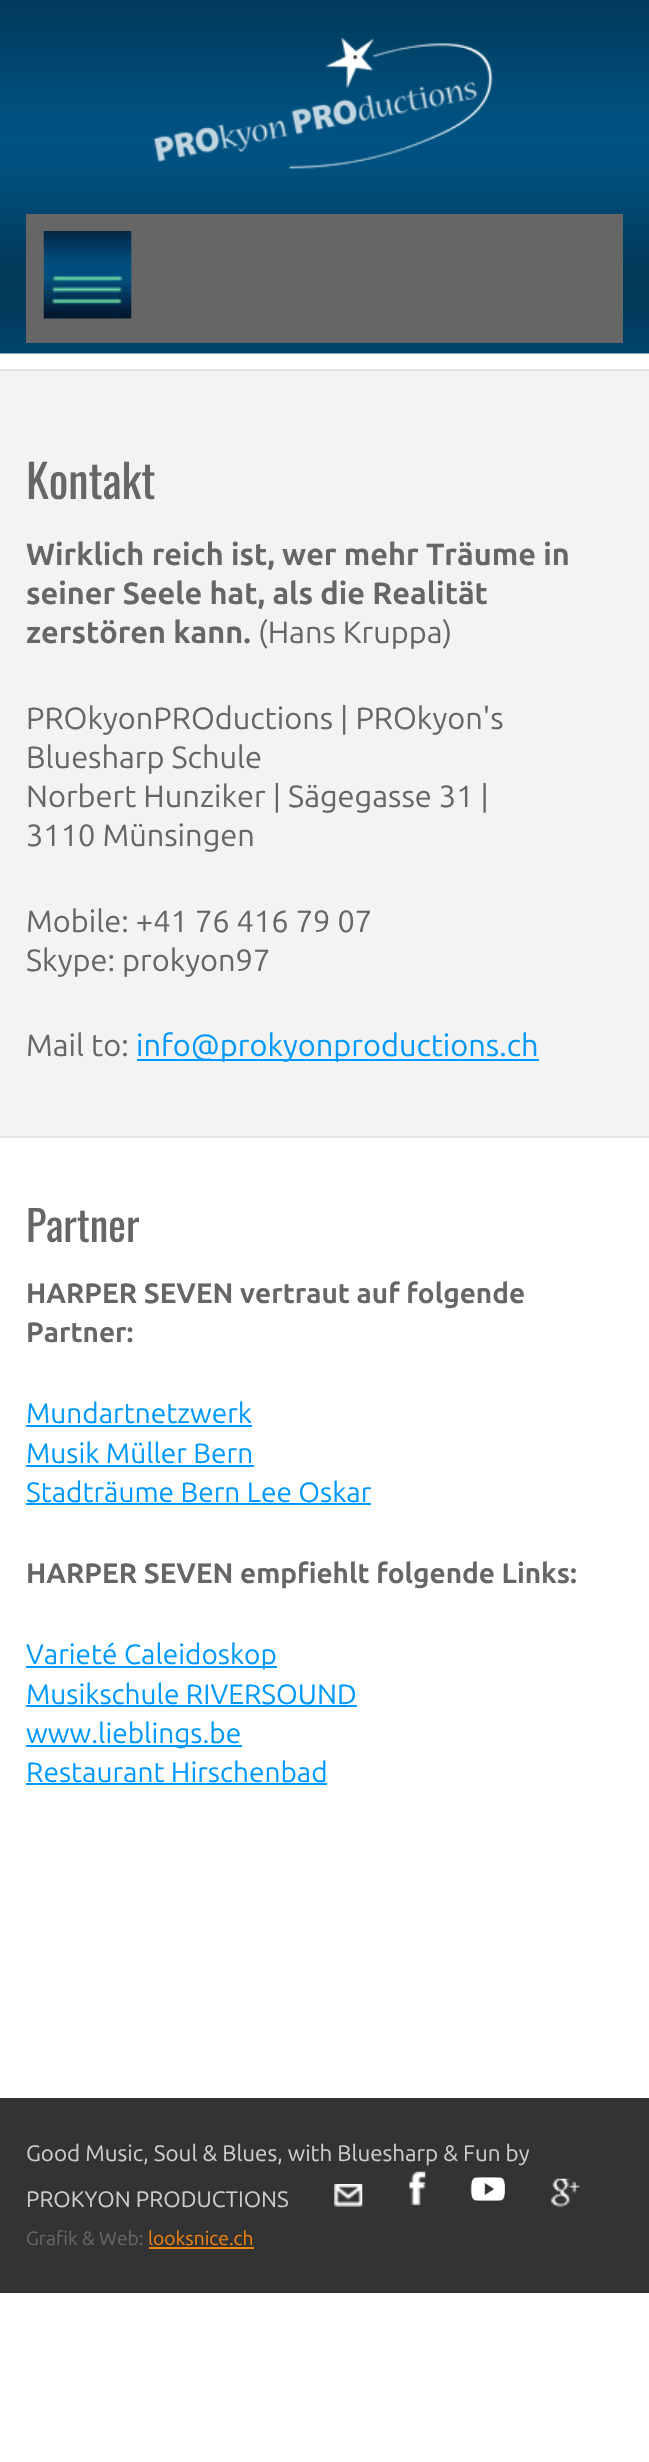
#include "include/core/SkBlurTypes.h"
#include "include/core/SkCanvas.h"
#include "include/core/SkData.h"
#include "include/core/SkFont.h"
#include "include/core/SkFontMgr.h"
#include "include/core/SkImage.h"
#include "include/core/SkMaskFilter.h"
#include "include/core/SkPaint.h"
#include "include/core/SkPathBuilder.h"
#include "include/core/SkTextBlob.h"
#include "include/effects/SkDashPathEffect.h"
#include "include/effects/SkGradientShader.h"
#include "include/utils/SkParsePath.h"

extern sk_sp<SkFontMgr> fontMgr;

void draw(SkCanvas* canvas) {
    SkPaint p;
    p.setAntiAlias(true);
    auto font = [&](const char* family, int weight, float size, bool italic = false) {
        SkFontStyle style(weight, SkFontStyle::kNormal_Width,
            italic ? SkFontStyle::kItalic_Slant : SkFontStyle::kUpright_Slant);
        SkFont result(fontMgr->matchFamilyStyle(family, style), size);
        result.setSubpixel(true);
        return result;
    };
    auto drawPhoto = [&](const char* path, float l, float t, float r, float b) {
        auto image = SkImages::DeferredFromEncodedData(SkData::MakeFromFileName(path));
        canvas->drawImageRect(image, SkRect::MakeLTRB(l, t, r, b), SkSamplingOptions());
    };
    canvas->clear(0xFFFFFFFF);
    drawPhoto("media/1.png", 0, 0, 649, 354);
    drawPhoto("media/2.png", 153, 37, 493, 169);
    p.setColor(0xFF666666);
    canvas->drawRect(SkRect::MakeLTRB(26, 214, 623, 343), p);
    drawPhoto("media/3.png", 43, 231, 132, 319);
    {
        const struct { float l, t, r, b; SkColor color; } items[] = {
            {0, 371, 649, 1136, 0xFFF3F3F3},
            {0, 369, 649, 371, 0xFFE2E2E2},
            {0, 1136, 649, 1138, 0xFFE2E2E2},
        };
        for (auto [l, t, r, b, color] : items) {
            p.setColor(color);
            canvas->drawRect(SkRect::MakeLTRB(l, t, r, b), p);
        }
    }
    auto font1 = font("Oswald", 400, 46);
    p.setColor(0xFF666666);
    canvas->drawString("Kontakt", 26, 499, font1, p);
    auto font2 = font("Ubuntu", 700, 30.75f);
    {
        const struct { const char* s; float x, y; } items[] = {
            {"Wirklich reich ist, wer mehr Träume in", 26, 565},
            {"seiner Seele hat, als die Realität", 26, 604},
            {"zerstören kann.", 26, 643},
        };
        for (auto [s, x, y] : items) {
            canvas->drawString(s, x, y, font2, p);
        }
    }
    auto font3 = font("Ubuntu", 400, 30.75f);
    {
        const struct { const char* s; float x, y; } items[] = {
            {"(Hans Kruppa)", 258, 643},
            {"PROkyonPROductions | PROkyon's", 26, 729},
            {"Bluesharp Schule", 26, 768},
            {"Norbert Hunziker | Sägegasse 31 |", 26, 807},
            {"3110 Münsingen", 26, 846},
            {"Mobile: +41 76 416 79 07", 26, 932},
            {"Skype: prokyon97", 26, 971},
            {"Mail to:", 26, 1056},
        };
        for (auto [s, x, y] : items) {
            canvas->drawString(s, x, y, font3, p);
        }
    }
    p.setColor(0xFF0099FF);
    canvas->drawRect(SkRect::MakeLTRB(137, 1059, 539, 1061), p);
    canvas->drawString("info@prokyonproductions.ch", 136, 1056, font3, p);
    auto font4 = font("Oswald", 400, 42);
    p.setColor(0xFF666666);
    canvas->drawString("Partner", 26, 1242, font4, p);
    auto font5 = font("Ubuntu", 700, 28);
    canvas->drawString("HARPER SEVEN vertraut auf folgende", 26, 1303, font5, p);
    canvas->drawString("Partner:", 26, 1342, font5, p);
    auto font6 = font("Ubuntu", 400, 28);
    p.setColor(0xFF0099FF);
    canvas->drawString("Mundartnetzwerk", 26, 1423, font6, p);
    canvas->drawRect(SkRect::MakeLTRB(26, 1425, 252, 1427), p);
    canvas->drawString("Musik Müller Bern", 26, 1463, font6, p);
    canvas->drawRect(SkRect::MakeLTRB(26, 1465, 254, 1467), p);
    canvas->drawString("Stadträume Bern Lee Oskar", 26, 1502, font6, p);
    canvas->drawRect(SkRect::MakeLTRB(26, 1503, 371, 1505), p);
    p.setColor(0xFF666666);
    canvas->drawString("HARPER SEVEN empfiehlt folgende Links:", 26, 1583, font5, p);
    p.setColor(0xFF0099FF);
    canvas->drawRect(SkRect::MakeLTRB(26, 1666, 277, 1668), p);
    canvas->drawString("Varieté Caleidoskop", 26, 1664, font6, p);
    canvas->drawString("Musikschule RIVERSOUND", 26, 1704, font6, p);
    canvas->drawRect(SkRect::MakeLTRB(26, 1705, 357, 1707), p);
    canvas->drawRect(SkRect::MakeLTRB(26, 1745, 242, 1747), p);
    canvas->drawString("www.lieblings.be", 26, 1743, font6, p);
    canvas->drawString("Restaurant Hirschenbad", 26, 1782, font6, p);
    canvas->drawRect(SkRect::MakeLTRB(26, 1783, 327, 1785), p);
    p.setColor(0xFF333333);
    canvas->drawRect(SkRect::MakeLTRB(0, 2098, 649, 2293), p);
    auto font7 = font("Ubuntu", 400, 22.4f);
    p.setColor(0xFFCCCCCC);
    canvas->drawString("Good Music, Soul & Blues, with Bluesharp & Fun by", 26, 2161, font7, p);
    canvas->drawString("PROKYON PRODUCTIONS", 26, 2207, font7, p);
    drawPhoto("media/4.png", 334, 2184, 363, 2207);
    drawPhoto("media/5.png", 409, 2171, 426, 2207);
    drawPhoto("media/6.png", 470, 2177, 505, 2201);
    drawPhoto("media/7.png", 551, 2178, 580, 2207);
    auto font8 = font("Ubuntu", 400, 19.25f);
    p.setColor(0xFF666666);
    canvas->drawString("Grafik & Web:", 26, 2245, font8, p);
    p.setColor(0xFFEF820E);
    canvas->drawString("looksnice.ch", 148, 2245, font8, p);
    canvas->drawRect(SkRect::MakeLTRB(149, 2247, 254, 2249), p);
}
